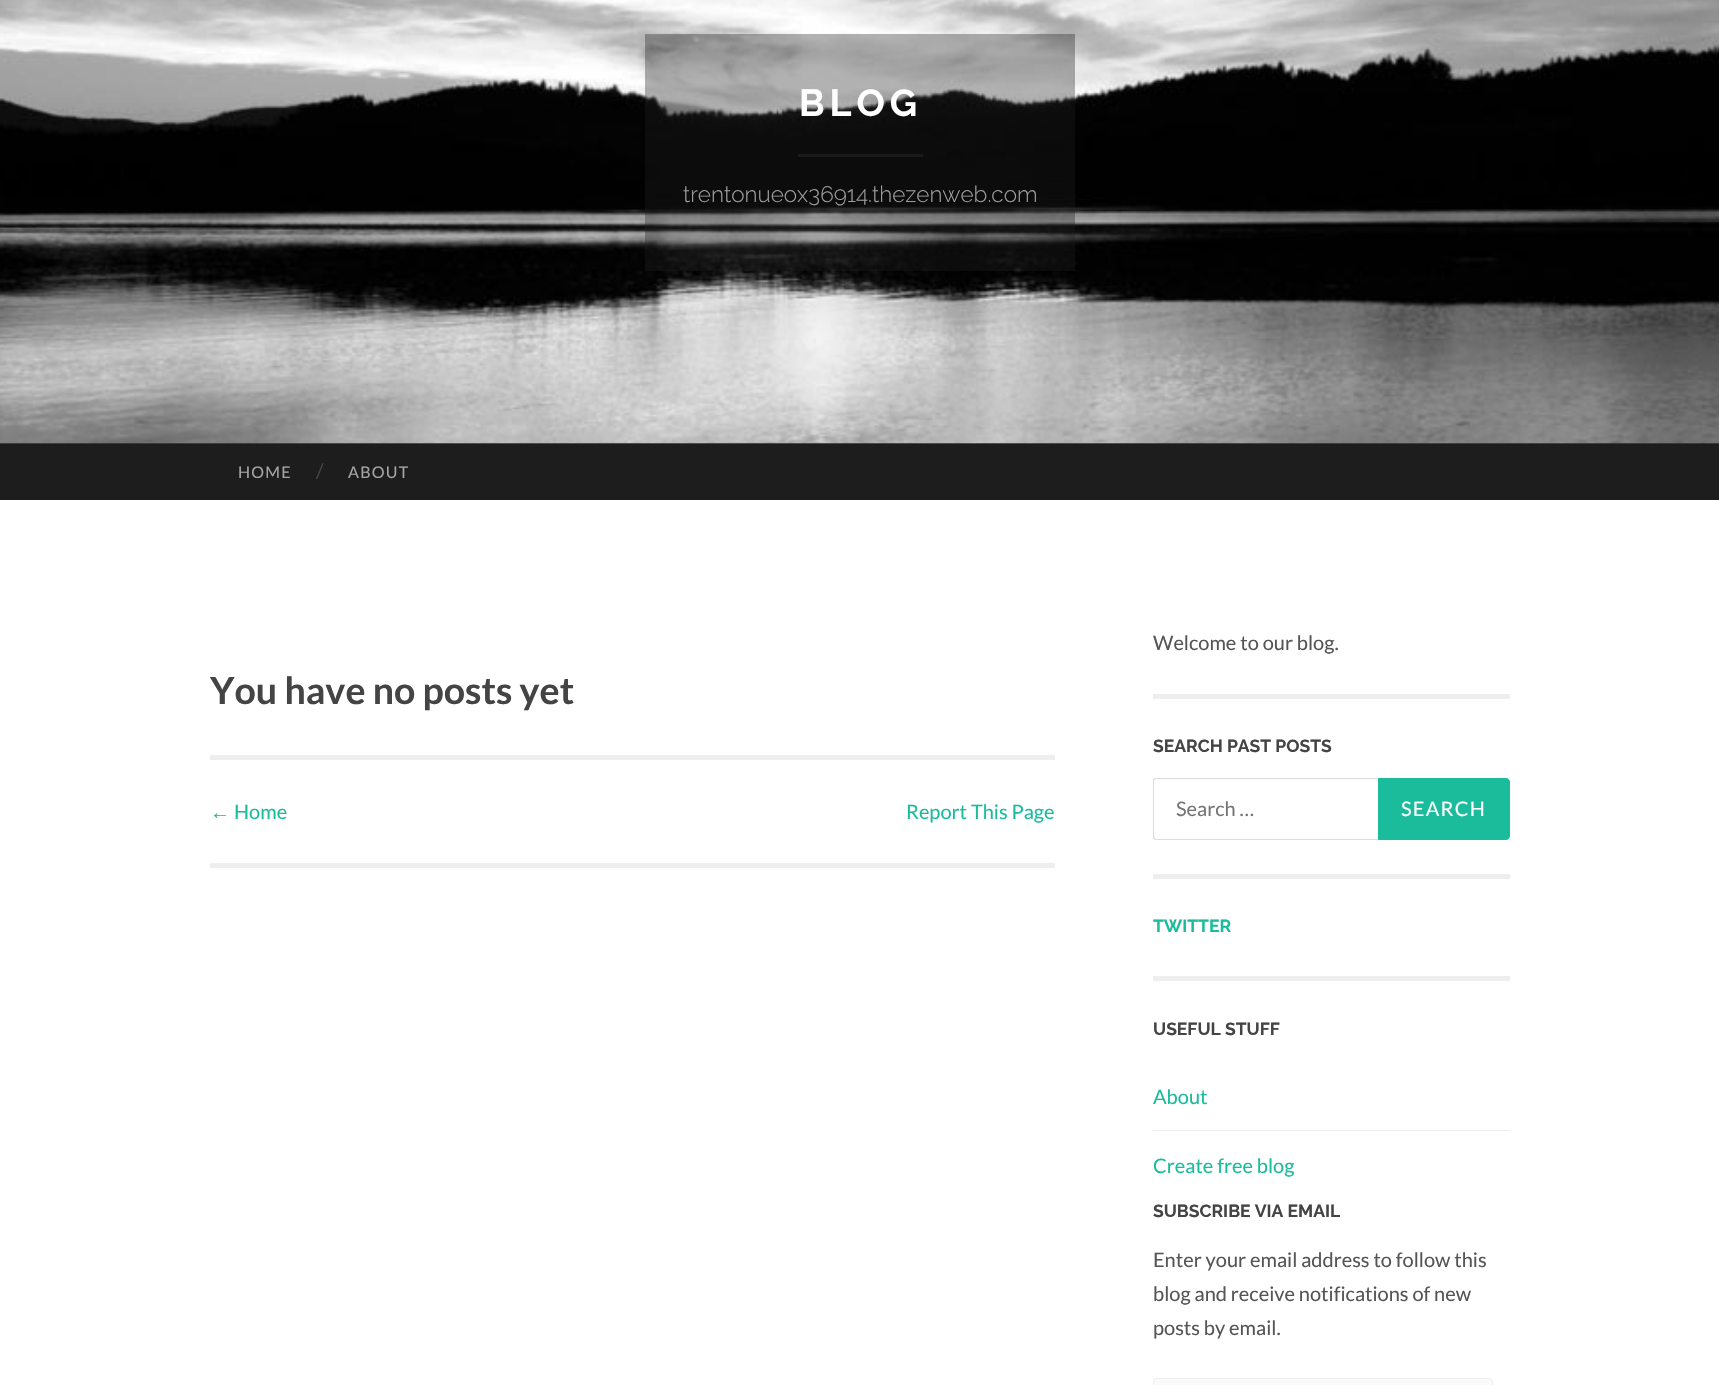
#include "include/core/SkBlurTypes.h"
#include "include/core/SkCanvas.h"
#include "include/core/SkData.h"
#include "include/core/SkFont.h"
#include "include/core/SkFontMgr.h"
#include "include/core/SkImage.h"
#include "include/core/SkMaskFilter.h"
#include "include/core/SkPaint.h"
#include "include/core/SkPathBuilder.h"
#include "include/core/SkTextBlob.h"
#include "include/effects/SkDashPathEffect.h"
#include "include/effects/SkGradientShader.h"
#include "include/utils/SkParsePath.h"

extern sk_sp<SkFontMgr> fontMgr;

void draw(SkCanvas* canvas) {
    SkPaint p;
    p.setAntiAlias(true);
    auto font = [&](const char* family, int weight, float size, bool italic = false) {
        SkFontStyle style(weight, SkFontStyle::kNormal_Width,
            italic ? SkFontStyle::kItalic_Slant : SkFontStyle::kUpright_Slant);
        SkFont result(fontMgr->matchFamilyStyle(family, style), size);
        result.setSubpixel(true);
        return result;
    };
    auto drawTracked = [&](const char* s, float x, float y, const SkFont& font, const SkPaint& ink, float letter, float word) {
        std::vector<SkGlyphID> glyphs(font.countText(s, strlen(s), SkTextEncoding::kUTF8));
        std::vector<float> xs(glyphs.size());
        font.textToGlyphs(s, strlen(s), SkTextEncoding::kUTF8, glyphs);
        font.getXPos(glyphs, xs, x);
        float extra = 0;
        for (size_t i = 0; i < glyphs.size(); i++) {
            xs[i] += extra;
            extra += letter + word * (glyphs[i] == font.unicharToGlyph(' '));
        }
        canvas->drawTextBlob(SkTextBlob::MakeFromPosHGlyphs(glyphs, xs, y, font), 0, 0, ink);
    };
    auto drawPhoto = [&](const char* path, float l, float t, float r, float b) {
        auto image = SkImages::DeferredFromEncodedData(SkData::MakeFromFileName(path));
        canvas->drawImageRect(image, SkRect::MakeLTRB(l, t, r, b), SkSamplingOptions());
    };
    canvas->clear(0xFFFFFFFF);
    p.setColor(0xFF262626);
    canvas->drawRect(SkRect::MakeLTRB(0, 443, 1719, 444), p);
    drawPhoto("media/1.png", 0, 0, 1719, 444);
    p.setColor(0x571D1D1D);
    canvas->drawRect(SkRect::MakeLTRB(645, 34, 1075, 271), p);
    auto font1 = font("Raleway", 700, 37.5f);
    p.setColor(0xFFFFFFFF);
    drawTracked("BLOG", 799, 116, font1, p, 5, 0);
    p.setColor(0xFF1A1A1A);
    canvas->drawRect(SkRect::MakeLTRB(798, 154, 923, 157), p);
    auto font2 = font("Raleway", 300, 22.5f);
    p.setColor(0xFF9D9D9D);
    canvas->drawString("trentonueox36914.thezenweb.com", 683, 202, font2, p);
    p.setColor(0xFF1D1D1D);
    canvas->drawRect(SkRect::MakeLTRB(0, 444, 1719, 500), p);
    auto font3 = font("Lato", 400, 16);
    p.setColor(0xFFA5A5A5);
    drawTracked("HOME", 238, 478, font3, p, 1.25f, 0);
    auto font4 = font("Lato", 400, 20);
    p.setColor(0xFF444444);
    canvas->drawString("/", 316, 478, font4, p);
    p.setColor(0xFFA5A5A5);
    drawTracked("ABOUT", 348, 478, font3, p, 1.25f, 0);
    auto font5 = font("Lato", 700, 37.5f);
    p.setColor(0xFF444444);
    canvas->drawString("You have no posts yet", 210, 704, font5, p);
    p.setColor(0xFFEEEEEE);
    canvas->drawRect(SkRect::MakeLTRB(210, 755, 1055, 760), p);
    canvas->drawRect(SkRect::MakeLTRB(210, 863, 1055, 868), p);
    auto font6 = font("Liberation Sans", 400, 20);
    p.setColor(0xFF1ABC9C);
    canvas->drawString("←", 210, 819, font6, p);
    canvas->drawString("Home", 234, 819, font4, p);
    canvas->drawString("Report This Page", 906, 819, font4, p);
    p.setColor(0xFFEEEEEE);
    canvas->drawRect(SkRect::MakeLTRB(1153, 694, 1510, 699), p);
    p.setColor(0xFF555555);
    canvas->drawString("Welcome to our blog.", 1153, 650, font4, p);
    p.setColor(0xFFEEEEEE);
    canvas->drawRect(SkRect::MakeLTRB(1153, 874, 1510, 879), p);
    auto font7 = font("Raleway", 700, 17.5f);
    p.setColor(0xFF444444);
    canvas->drawString("SEARCH PAST POSTS", 1153, 752, font7, p);
    canvas->save();
    canvas->clipRect(SkRect::MakeLTRB(1153, 625, 1510, 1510));
    p.setColor(0xFFDDDDDD);
    canvas->drawPath(SkPathBuilder(SkPathFillType::kEvenOdd).moveTo(1156, 778).lineTo(1506, 778).lineTo(1506, 840).lineTo(1156, 840).cubicTo(1154, 840, 1152, 838, 1152, 836).lineTo(1152, 781).cubicTo(1152, 779, 1154, 778, 1156, 778).close().moveTo(1156, 779).lineTo(1506, 779).lineTo(1506, 839).lineTo(1156, 839).cubicTo(1155, 839, 1154, 838, 1154, 836).lineTo(1154, 781).cubicTo(1154, 780, 1155, 779, 1156, 779).close().detach(), p);
    canvas->restore();
    p.setColor(0xFF757575);
    canvas->drawString("Search …", 1176, 816, font4, p);
    p.setColor(0xFF1ABC9C);
    canvas->drawPath(SkPathBuilder().moveTo(1378.5f, 778.5f).lineTo(1506, 778.5f).cubicTo(1508, 778.5f, 1509.5f, 780, 1509.5f, 782).lineTo(1509.5f, 836).cubicTo(1509.5f, 838, 1508, 839.5f, 1506, 839.5f).lineTo(1378.5f, 839.5f).close().detach(), p);
    p.setStyle(SkPaint::kStroke_Style);
    p.setStrokeWidth(1);
    canvas->drawPath(SkPathBuilder().moveTo(1378.5f, 778.5f).lineTo(1506, 778.5f).cubicTo(1508, 778.5f, 1509.5f, 780, 1509.5f, 782).lineTo(1509.5f, 836).cubicTo(1509.5f, 838, 1508, 839.5f, 1506, 839.5f).lineTo(1378.5f, 839.5f).close().detach(), p);
    p.setStyle(SkPaint::kFill_Style);
    p.setColor(0xFFFFFFFF);
    drawTracked("SEARCH", 1401, 816, font4, p, 1.25f, 0);
    p.setColor(0xFFEEEEEE);
    canvas->drawRect(SkRect::MakeLTRB(1153, 976, 1510, 981), p);
    canvas->save();
    canvas->clipRect(SkRect::MakeLTRB(1153, 625, 1510, 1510));
    p.setColor(0xFF1ABC9C);
    canvas->drawString("TWITTER", 1153, 932, font7, p);
    canvas->restore();
    p.setColor(0xFF444444);
    canvas->drawString("USEFUL STUFF", 1153, 1035, font7, p);
    p.setColor(0xFF1ABC9C);
    canvas->drawString("About", 1153, 1104, font4, p);
    p.setColor(0xFFEEEEEE);
    canvas->drawRect(SkRect::MakeLTRB(1153, 1130, 1510, 1131), p);
    p.setColor(0xFF1ABC9C);
    canvas->drawString("Create free blog", 1153, 1173, font4, p);
    p.setColor(0xFF444444);
    canvas->drawString("SUBSCRIBE VIA EMAIL", 1153, 1217, font7, p);
    p.setColor(0xFF555555);
    {
        const struct { const char* s; float x, y; } items[] = {
            {"Enter your email address to follow this", 1153, 1267},
            {"blog and receive notifications of new", 1153, 1301},
            {"posts by email.", 1153, 1335},
        };
        for (auto [s, x, y] : items) {
            canvas->drawString(s, x, y, font4, p);
        }
    }
    p.setColor(0xFFFAFAFA);
    canvas->drawRoundRect(SkRect::MakeLTRB(1153.5f, 1378.5f, 1492.5f, 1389.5f), 3.5f, 3.5f, p);
    p.setStyle(SkPaint::kStroke_Style);
    p.setColor(0xFFEEEEEE);
    canvas->drawRoundRect(SkRect::MakeLTRB(1153.5f, 1378.5f, 1492.5f, 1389.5f), 3.5f, 3.5f, p);
}
